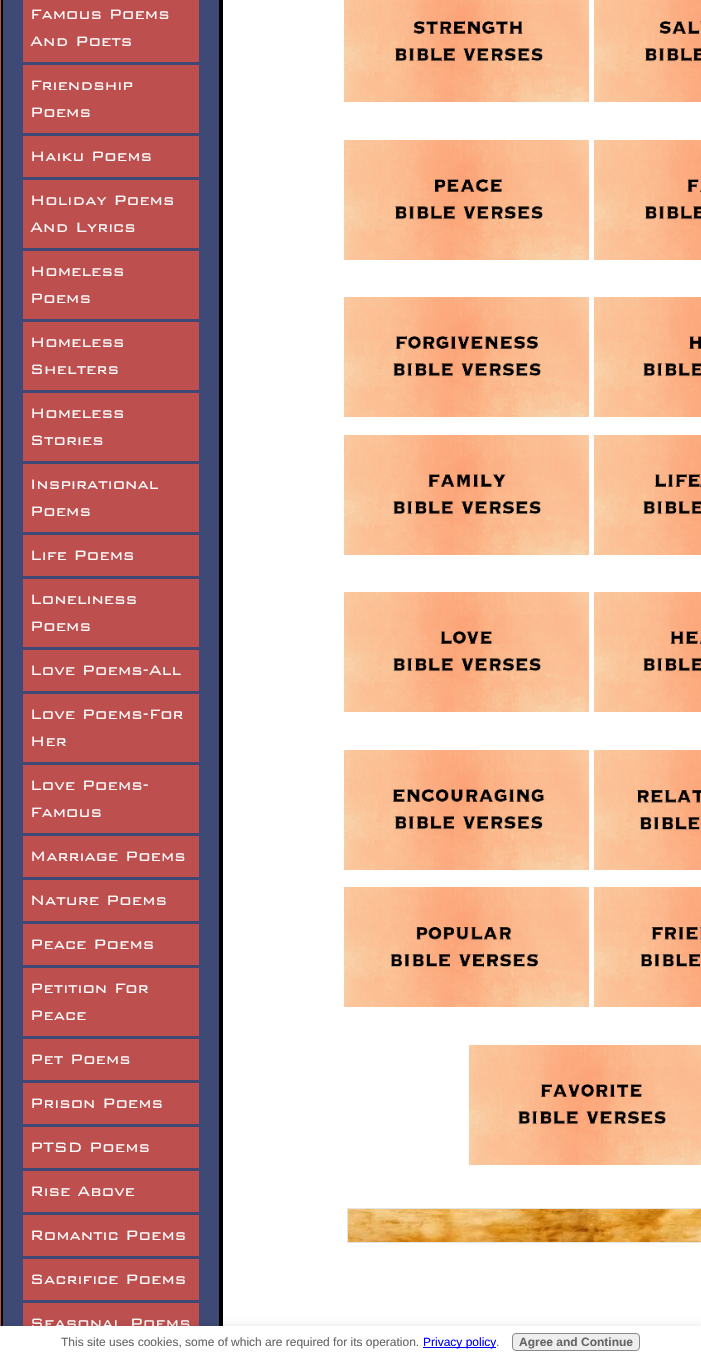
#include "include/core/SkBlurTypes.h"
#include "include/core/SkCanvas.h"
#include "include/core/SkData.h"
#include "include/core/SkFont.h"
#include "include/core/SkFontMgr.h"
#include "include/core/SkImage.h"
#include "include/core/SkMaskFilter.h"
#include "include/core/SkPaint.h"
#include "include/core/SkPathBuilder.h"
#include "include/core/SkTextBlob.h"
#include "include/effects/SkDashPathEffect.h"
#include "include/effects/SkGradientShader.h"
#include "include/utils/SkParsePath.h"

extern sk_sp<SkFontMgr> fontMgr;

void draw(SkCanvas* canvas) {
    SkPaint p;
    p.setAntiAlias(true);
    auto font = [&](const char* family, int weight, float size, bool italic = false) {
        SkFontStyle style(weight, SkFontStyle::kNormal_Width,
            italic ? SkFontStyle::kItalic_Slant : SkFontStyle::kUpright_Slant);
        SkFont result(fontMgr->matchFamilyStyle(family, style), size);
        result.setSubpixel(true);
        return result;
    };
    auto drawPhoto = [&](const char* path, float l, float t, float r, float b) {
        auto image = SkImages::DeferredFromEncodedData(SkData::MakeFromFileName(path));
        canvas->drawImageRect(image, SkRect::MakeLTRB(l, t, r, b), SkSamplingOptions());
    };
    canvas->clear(0xFFBD4F4F);
    p.setColor(0xFF3E4A75);
    canvas->drawRect(SkRect::MakeLTRB(3, 0, 219, 1326), p);
    p.setStyle(SkPaint::kStroke_Style);
    p.setStrokeWidth(2);
    p.setColor(0xFF000000);
    canvas->drawRect(SkRect::MakeLTRB(2, -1, 220, 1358), p);
    p.setStyle(SkPaint::kFill_Style);
    p.setColor(0xFFBD4F4F);
    canvas->drawRect(SkRect::MakeLTRB(23, 0, 199, 62), p);
    auto font1 = font("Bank", 400, 18);
    p.setColor(0xFFFAFAFA);
    canvas->drawString("Famous Poems", 30, 19, font1, p);
    canvas->drawString("And Poets", 30, 46, font1, p);
    p.setColor(0xFFBD4F4F);
    canvas->drawRect(SkRect::MakeLTRB(23, 65, 199, 133), p);
    p.setColor(0xFFFAFAFA);
    canvas->drawString("Friendship", 30, 90, font1, p);
    canvas->drawString("Poems", 30, 117, font1, p);
    p.setColor(0xFFBD4F4F);
    canvas->drawRect(SkRect::MakeLTRB(23, 136, 199, 177), p);
    p.setColor(0xFFFAFAFA);
    canvas->drawString("Haiku Poems", 30, 161, font1, p);
    p.setColor(0xFFBD4F4F);
    canvas->drawRect(SkRect::MakeLTRB(23, 180, 199, 248), p);
    p.setColor(0xFFFAFAFA);
    canvas->drawString("Holiday Poems", 30, 205, font1, p);
    canvas->drawString("And Lyrics", 30, 232, font1, p);
    p.setColor(0xFFBD4F4F);
    canvas->drawRect(SkRect::MakeLTRB(23, 251, 199, 319), p);
    p.setColor(0xFFFAFAFA);
    canvas->drawString("Homeless", 30, 276, font1, p);
    canvas->drawString("Poems", 30, 303, font1, p);
    p.setColor(0xFFBD4F4F);
    canvas->drawRect(SkRect::MakeLTRB(23, 322, 199, 390), p);
    p.setColor(0xFFFAFAFA);
    canvas->drawString("Homeless", 30, 347, font1, p);
    canvas->drawString("Shelters", 30, 374, font1, p);
    p.setColor(0xFFBD4F4F);
    canvas->drawRect(SkRect::MakeLTRB(23, 393, 199, 461), p);
    p.setColor(0xFFFAFAFA);
    canvas->drawString("Homeless", 30, 418, font1, p);
    canvas->drawString("Stories", 30, 445, font1, p);
    p.setColor(0xFFBD4F4F);
    canvas->drawRect(SkRect::MakeLTRB(23, 464, 199, 532), p);
    p.setColor(0xFFFAFAFA);
    canvas->drawString("Inspirational", 30, 489, font1, p);
    canvas->drawString("Poems", 30, 516, font1, p);
    p.setColor(0xFFBD4F4F);
    canvas->drawRect(SkRect::MakeLTRB(23, 535, 199, 576), p);
    p.setColor(0xFFFAFAFA);
    canvas->drawString("Life Poems", 30, 560, font1, p);
    p.setColor(0xFFBD4F4F);
    canvas->drawRect(SkRect::MakeLTRB(23, 579, 199, 647), p);
    p.setColor(0xFFFAFAFA);
    canvas->drawString("Loneliness", 30, 604, font1, p);
    canvas->drawString("Poems", 30, 631, font1, p);
    p.setColor(0xFFBD4F4F);
    canvas->drawRect(SkRect::MakeLTRB(23, 650, 199, 691), p);
    p.setColor(0xFFFAFAFA);
    canvas->drawString("Love Poems-All", 30, 675, font1, p);
    p.setColor(0xFFBD4F4F);
    canvas->drawRect(SkRect::MakeLTRB(23, 694, 199, 762), p);
    p.setColor(0xFFFAFAFA);
    canvas->drawString("Love Poems-For", 30, 719, font1, p);
    canvas->drawString("Her", 30, 746, font1, p);
    p.setColor(0xFFBD4F4F);
    canvas->drawRect(SkRect::MakeLTRB(23, 765, 199, 833), p);
    p.setColor(0xFFFAFAFA);
    canvas->drawString("Love Poems-", 30, 790, font1, p);
    canvas->drawString("Famous", 30, 817, font1, p);
    p.setColor(0xFFBD4F4F);
    canvas->drawRect(SkRect::MakeLTRB(23, 836, 199, 877), p);
    p.setColor(0xFFFAFAFA);
    canvas->drawString("Marriage Poems", 30, 861, font1, p);
    p.setColor(0xFFBD4F4F);
    canvas->drawRect(SkRect::MakeLTRB(23, 880, 199, 921), p);
    p.setColor(0xFFFAFAFA);
    canvas->drawString("Nature Poems", 30, 905, font1, p);
    p.setColor(0xFFBD4F4F);
    canvas->drawRect(SkRect::MakeLTRB(23, 924, 199, 965), p);
    p.setColor(0xFFFAFAFA);
    canvas->drawString("Peace Poems", 30, 949, font1, p);
    p.setColor(0xFFBD4F4F);
    canvas->drawRect(SkRect::MakeLTRB(23, 968, 199, 1036), p);
    p.setColor(0xFFFAFAFA);
    canvas->drawString("Petition For", 30, 993, font1, p);
    canvas->drawString("Peace", 30, 1020, font1, p);
    p.setColor(0xFFBD4F4F);
    canvas->drawRect(SkRect::MakeLTRB(23, 1039, 199, 1080), p);
    p.setColor(0xFFFAFAFA);
    canvas->drawString("Pet Poems", 30, 1064, font1, p);
    p.setColor(0xFFBD4F4F);
    canvas->drawRect(SkRect::MakeLTRB(23, 1083, 199, 1124), p);
    p.setColor(0xFFFAFAFA);
    canvas->drawString("Prison Poems", 30, 1108, font1, p);
    p.setColor(0xFFBD4F4F);
    canvas->drawRect(SkRect::MakeLTRB(23, 1127, 199, 1168), p);
    p.setColor(0xFFFAFAFA);
    canvas->drawString("PTSD Poems", 30, 1152, font1, p);
    p.setColor(0xFFBD4F4F);
    canvas->drawRect(SkRect::MakeLTRB(23, 1171, 199, 1212), p);
    p.setColor(0xFFFAFAFA);
    canvas->drawString("Rise Above", 30, 1196, font1, p);
    p.setColor(0xFFBD4F4F);
    canvas->drawRect(SkRect::MakeLTRB(23, 1215, 199, 1256), p);
    p.setColor(0xFFFAFAFA);
    canvas->drawString("Romantic Poems", 30, 1240, font1, p);
    p.setColor(0xFFBD4F4F);
    canvas->drawRect(SkRect::MakeLTRB(23, 1259, 199, 1300), p);
    p.setColor(0xFFFAFAFA);
    canvas->drawString("Sacrifice Poems", 30, 1284, font1, p);
    p.setColor(0xFFBD4F4F);
    canvas->drawRect(SkRect::MakeLTRB(23, 1303, 199, 1326), p);
    p.setColor(0xFFFAFAFA);
    canvas->drawString("Seasonal Poems", 30, 1328, font1, p);
    p.setColor(0xFFFFFFFF);
    canvas->drawRect(SkRect::MakeLTRB(223, 0, 701, 1326), p);
    p.setStyle(SkPaint::kStroke_Style);
    p.setColor(0xFF000000);
    canvas->drawRect(SkRect::MakeLTRB(222, -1, 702, 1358), p);
    drawPhoto("media/1.png", 344, 0, 589, 102);
    drawPhoto("media/2.png", 594, 0, 701, 102);
    drawPhoto("media/3.png", 344, 140, 589, 260);
    drawPhoto("media/4.png", 594, 140, 701, 260);
    drawPhoto("media/5.png", 344, 297, 589, 417);
    drawPhoto("media/6.png", 594, 297, 701, 417);
    drawPhoto("media/7.png", 344, 435, 589, 555);
    drawPhoto("media/8.png", 594, 435, 701, 555);
    drawPhoto("media/9.png", 344, 592, 589, 712);
    drawPhoto("media/10.png", 594, 592, 701, 712);
    drawPhoto("media/11.png", 344, 750, 589, 870);
    drawPhoto("media/12.png", 594, 750, 701, 870);
    drawPhoto("media/13.png", 344, 887, 589, 1007);
    drawPhoto("media/14.png", 594, 887, 701, 1007);
    drawPhoto("media/15.png", 469, 1045, 701, 1165);
    p.setStrokeWidth(1);
    p.setColor(0xFFE5E5E5);
    canvas->drawRect(SkRect::MakeLTRB(347.5f, 1208.5f, 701.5f, 1242.5f), p);
    drawPhoto("media/16.png", 348, 1209, 701, 1242);
    p.setStyle(SkPaint::kFill_Style);
    p.setColor(0x33000000);
    p.setMaskFilter(SkMaskFilter::MakeBlur(kNormal_SkBlurStyle, 5));
    canvas->drawRect(SkRect::MakeLTRB(-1, 1329, 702, 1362), p);
    p.setMaskFilter(nullptr);
    p.setColor(0xFFFFFFFF);
    canvas->drawRect(SkRect::MakeLTRB(0, 1326, 701, 1357), p);
    auto font2 = font("Liberation Sans", 400, 12);
    p.setColor(0xFF666666);
    canvas->drawString("This site uses cookies, some of which are required for its operation.", 61, 1346, font2, p);
    p.setColor(0xFF0000FF);
    canvas->drawRect(SkRect::MakeLTRB(423, 1347, 496, 1348), p);
    canvas->drawString("Privacy policy", 423, 1346, font2, p);
    p.setColor(0xFF666666);
    canvas->drawString(".", 496, 1346, font2, p);
    p.setColor(0xFFEEEEEE);
    canvas->drawRoundRect(SkRect::MakeLTRB(512.5f, 1333.5f, 639.5f, 1350.5f), 3.5f, 3.5f, p);
    p.setStyle(SkPaint::kStroke_Style);
    p.setColor(0xFF888888);
    canvas->drawRoundRect(SkRect::MakeLTRB(512.5f, 1333.5f, 639.5f, 1350.5f), 3.5f, 3.5f, p);
    auto font3 = font("Liberation Sans", 700, 12);
    p.setStyle(SkPaint::kFill_Style);
    p.setColor(0xFF666666);
    canvas->drawString("Agree and Continue", 519, 1346, font3, p);
}
